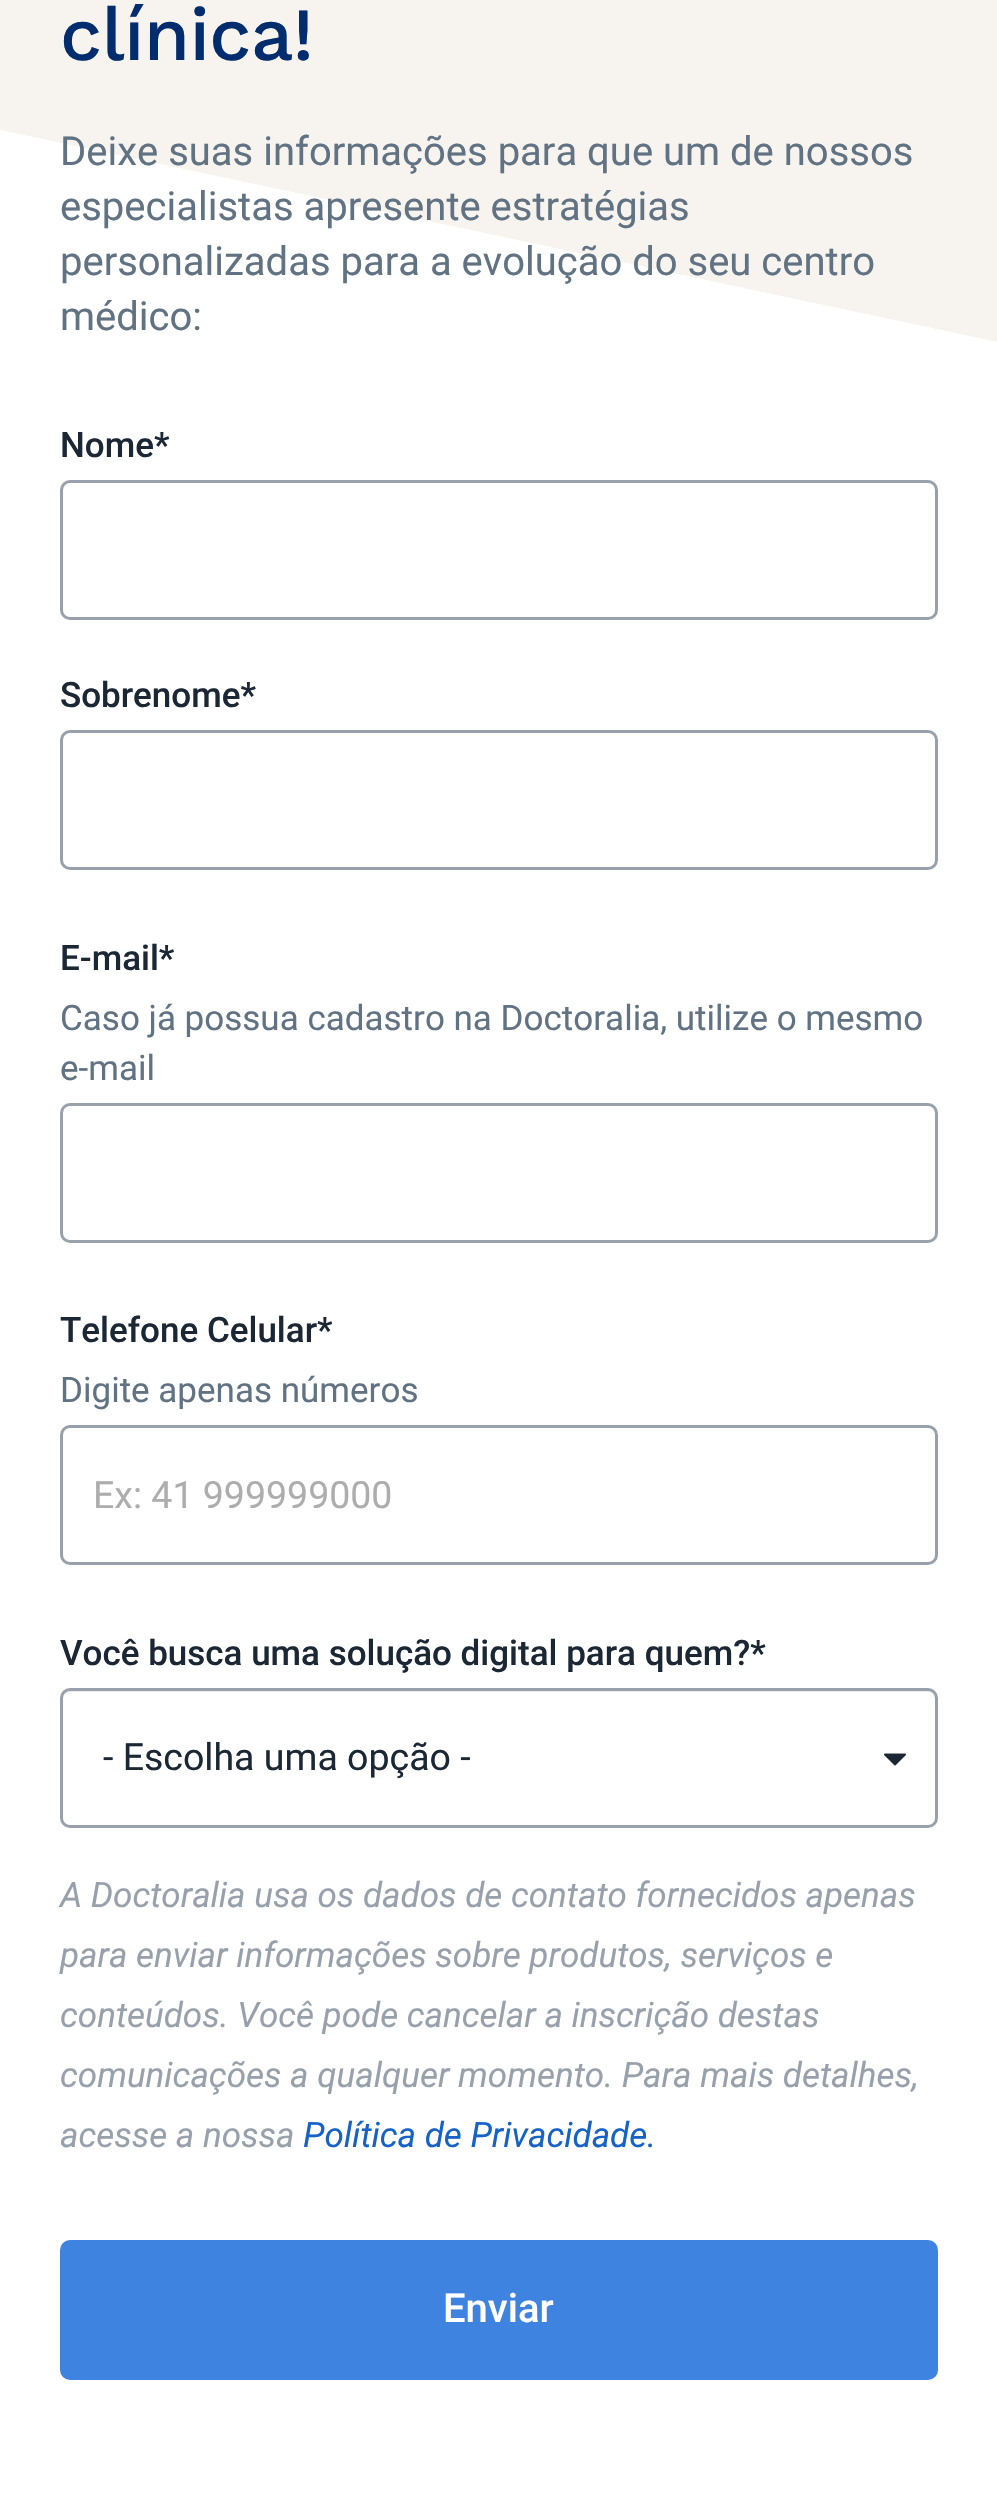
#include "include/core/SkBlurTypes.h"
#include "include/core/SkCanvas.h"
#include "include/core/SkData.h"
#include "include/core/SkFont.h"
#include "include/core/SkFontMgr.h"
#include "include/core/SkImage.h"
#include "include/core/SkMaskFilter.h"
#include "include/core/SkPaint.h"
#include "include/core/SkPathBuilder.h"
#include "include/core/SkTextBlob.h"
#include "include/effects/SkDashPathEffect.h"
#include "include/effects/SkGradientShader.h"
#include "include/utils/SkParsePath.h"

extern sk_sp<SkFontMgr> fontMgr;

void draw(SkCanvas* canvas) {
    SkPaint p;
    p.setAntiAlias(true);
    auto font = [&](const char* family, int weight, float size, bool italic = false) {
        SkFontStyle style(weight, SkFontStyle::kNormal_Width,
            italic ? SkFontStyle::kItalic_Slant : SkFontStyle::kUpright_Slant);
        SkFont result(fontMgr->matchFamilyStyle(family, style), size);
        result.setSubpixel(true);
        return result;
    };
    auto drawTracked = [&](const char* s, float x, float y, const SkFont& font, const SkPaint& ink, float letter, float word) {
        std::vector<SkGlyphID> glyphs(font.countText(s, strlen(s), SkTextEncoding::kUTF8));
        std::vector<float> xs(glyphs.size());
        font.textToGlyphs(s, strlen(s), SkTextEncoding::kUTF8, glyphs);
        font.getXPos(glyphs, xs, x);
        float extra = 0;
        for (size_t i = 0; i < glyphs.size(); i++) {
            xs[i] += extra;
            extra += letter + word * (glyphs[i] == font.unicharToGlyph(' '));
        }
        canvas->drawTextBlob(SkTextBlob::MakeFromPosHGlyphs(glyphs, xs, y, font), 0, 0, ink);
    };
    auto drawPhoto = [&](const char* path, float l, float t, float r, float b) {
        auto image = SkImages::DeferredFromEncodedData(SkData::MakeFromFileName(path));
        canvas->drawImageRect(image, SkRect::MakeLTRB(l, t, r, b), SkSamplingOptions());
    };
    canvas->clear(0xFFFFFFFF);
    {
        const SkColor colors[] = {0xFFF7F4F0, 0xFFFFFFFF};
        const float stops[] = {0.24f, 0.24f};
        const SkPoint ends[] = {{878, -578}, {120, 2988}};
        p.setShader(SkGradientShader::MakeLinear(ends, colors, stops, 2, SkTileMode::kClamp));
        p.setAlpha(255);
    }
    canvas->drawRect(SkRect::MakeLTRB(0, 0, 997, 342), p);
    auto font1 = font("Work Sans", 500, 75);
    p.setShader(nullptr);
    p.setColor(0xFF012C6D);
    drawTracked("clínica!", 60, 60, font1, p, -0.75f, 0);
    auto font2 = font("Roboto", 400, 40);
    p.setColor(0xFF617283);
    {
        const struct { const char* s; float x, y; } items[] = {
            {"Deixe suas informações para que um de nossos", 60, 165},
            {"especialistas apresente estratégias", 60, 220},
            {"personalizadas para a evolução do seu centro", 60, 275},
            {"médico:", 60, 330},
        };
        for (auto [s, x, y] : items) {
            canvas->drawString(s, x, y, font2, p);
        }
    }
    auto font3 = font("Roboto", 500, 35);
    p.setColor(0xFF1B2734);
    canvas->drawString("Nome*", 60, 457, font3, p);
    p.setStyle(SkPaint::kStroke_Style);
    p.setStrokeWidth(3);
    p.setColor(0xFF98A1AB);
    canvas->drawRoundRect(SkRect::MakeLTRB(61.5f, 481.5f, 936.5f, 618.5f), 8.5f, 8.5f, p);
    p.setStyle(SkPaint::kFill_Style);
    p.setColor(0xFF1B2734);
    canvas->drawString("Sobrenome*", 60, 707, font3, p);
    p.setStyle(SkPaint::kStroke_Style);
    p.setColor(0xFF98A1AB);
    canvas->drawRoundRect(SkRect::MakeLTRB(61.5f, 731.5f, 936.5f, 868.5f), 8.5f, 8.5f, p);
    p.setStyle(SkPaint::kFill_Style);
    p.setColor(0xFF1B2734);
    canvas->drawString("E-mail*", 60, 970, font3, p);
    auto font4 = font("Roboto", 400, 35);
    p.setColor(0xFF617283);
    canvas->drawString("Caso já possua cadastro na Doctoralia, utilize o mesmo", 60, 1030, font4, p);
    canvas->drawString("e-mail", 60, 1080, font4, p);
    p.setStyle(SkPaint::kStroke_Style);
    p.setColor(0xFF98A1AB);
    canvas->drawRoundRect(SkRect::MakeLTRB(61.5f, 1104.5f, 936.5f, 1241.5f), 8.5f, 8.5f, p);
    p.setStyle(SkPaint::kFill_Style);
    p.setColor(0xFF1B2734);
    canvas->drawString("Telefone Celular*", 60, 1342, font3, p);
    p.setColor(0xFF617283);
    canvas->drawString("Digite apenas números", 60, 1402, font4, p);
    p.setStyle(SkPaint::kStroke_Style);
    p.setColor(0xFF98A1AB);
    canvas->drawRoundRect(SkRect::MakeLTRB(61.5f, 1426.5f, 936.5f, 1563.5f), 8.5f, 8.5f, p);
    auto font5 = font("Roboto", 400, 37.5f);
    p.setStyle(SkPaint::kFill_Style);
    p.setColor(0xFFADADAD);
    canvas->drawString("Ex: 41 999999000", 93, 1508, font5, p);
    p.setColor(0xFF1B2734);
    canvas->drawString("Você busca uma solução digital para quem?*", 60, 1665, font3, p);
    drawPhoto("media/1.png", 884, 1753, 906, 1766);
    p.setColor(0xFFECECEC);
    canvas->drawPath(SkPathBuilder().moveTo(70, 1692).lineTo(928, 1692).cubicTo(932, 1692, 935, 1696, 935, 1700).lineTo(935, 1698).cubicTo(935, 1694, 931, 1690, 927, 1690).lineTo(71, 1690).cubicTo(67, 1690, 64, 1693, 63, 1696).cubicTo(65, 1694, 67, 1692, 70, 1692).close().detach(), p);
    p.setStyle(SkPaint::kStroke_Style);
    p.setColor(0xFF98A1AB);
    canvas->drawRoundRect(SkRect::MakeLTRB(61.5f, 1689.5f, 936.5f, 1826.5f), 8.5f, 8.5f, p);
    p.setStyle(SkPaint::kFill_Style);
    p.setColor(0xFF1B2734);
    canvas->drawString("- Escolha uma opção -", 103, 1770, font5, p);
    auto font6 = font("Roboto", 400, 35, true);
    p.setColor(0xFF98A1AB);
    {
        const struct { const char* s; float x, y; } items[] = {
            {"A Doctoralia usa os dados de contato fornecidos apenas", 60, 1907},
            {"para enviar informações sobre produtos, serviços e", 60, 1967},
            {"conteúdos. Você pode cancelar a inscrição destas", 60, 2027},
            {"comunicações a qualquer momento. Para mais detalhes,", 60, 2087},
            {"acesse a nossa", 60, 2147},
        };
        for (auto [s, x, y] : items) {
            canvas->drawString(s, x, y, font6, p);
        }
    }
    p.setColor(0xFF1662C6);
    canvas->drawString("Política de Privacidade.", 303, 2147, font6, p);
    p.setColor(0xFF3D83DF);
    canvas->drawRoundRect(SkRect::MakeLTRB(60, 2240, 938, 2380), 10, 10, p);
    auto font7 = font("Roboto", 500, 40);
    p.setColor(0xFFFFFFFF);
    canvas->drawString("Enviar", 443, 2322, font7, p);
}
